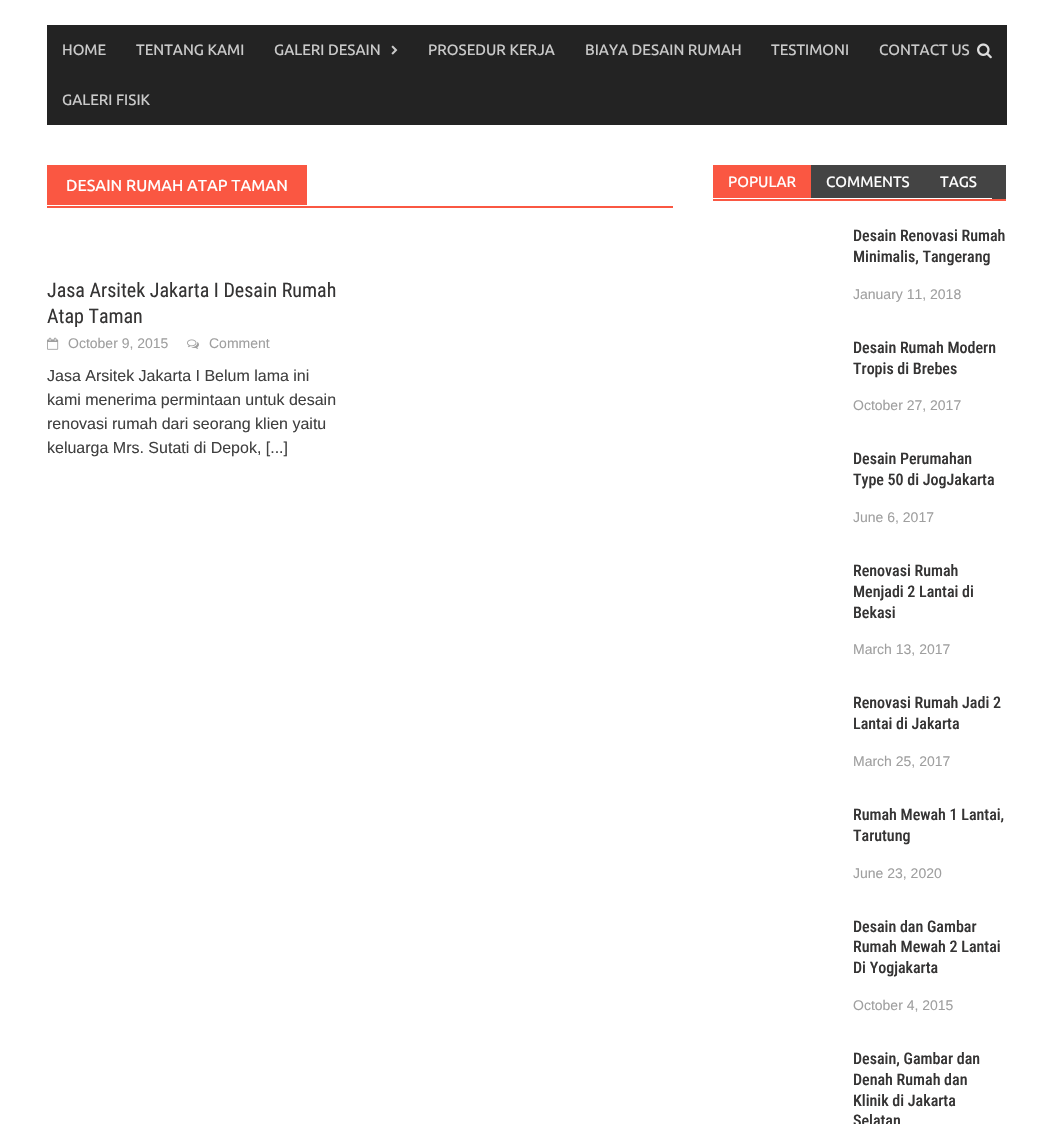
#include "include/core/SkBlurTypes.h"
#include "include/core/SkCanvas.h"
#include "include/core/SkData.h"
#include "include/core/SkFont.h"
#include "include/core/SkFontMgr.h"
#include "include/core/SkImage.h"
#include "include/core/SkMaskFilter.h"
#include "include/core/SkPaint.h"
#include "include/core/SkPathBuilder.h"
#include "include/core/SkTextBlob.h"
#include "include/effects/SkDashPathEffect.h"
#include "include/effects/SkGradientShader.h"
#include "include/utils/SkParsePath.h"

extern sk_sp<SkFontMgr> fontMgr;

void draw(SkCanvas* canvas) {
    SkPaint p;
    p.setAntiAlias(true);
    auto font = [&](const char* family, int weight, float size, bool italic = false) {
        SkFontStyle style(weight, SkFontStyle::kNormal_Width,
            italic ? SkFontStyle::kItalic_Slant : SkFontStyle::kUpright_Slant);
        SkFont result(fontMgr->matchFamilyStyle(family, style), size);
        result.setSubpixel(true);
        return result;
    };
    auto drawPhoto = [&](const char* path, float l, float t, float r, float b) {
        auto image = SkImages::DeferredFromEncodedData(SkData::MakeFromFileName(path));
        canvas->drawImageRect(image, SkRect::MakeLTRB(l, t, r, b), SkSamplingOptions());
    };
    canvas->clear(0xFFFFFFFF);
    p.setColor(0xFF232323);
    canvas->drawRect(SkRect::MakeLTRB(47, 25, 1007, 125), p);
    auto font1 = font("Ubuntu", 500, 15);
    p.setColor(0xFFCACACA);
    {
        const struct { const char* s; float x, y; } items[] = {
            {"HOME", 62, 55},
            {"TENTANG KAMI", 136, 55},
            {"GALERI DESAIN", 274, 55},
        };
        for (auto [s, x, y] : items) {
            canvas->drawString(s, x, y, font1, p);
        }
    }
    drawPhoto("media/1.png", 391, 45, 398, 55);
    {
        const struct { const char* s; float x, y; } items[] = {
            {"PROSEDUR KERJA", 428, 55},
            {"BIAYA DESAIN RUMAH", 585, 55},
            {"TESTIMONI", 771, 55},
            {"CONTACT US", 879, 55},
            {"GALERI FISIK", 62, 105},
        };
        for (auto [s, x, y] : items) {
            canvas->drawString(s, x, y, font1, p);
        }
    }
    drawPhoto("media/2.png", 977, 43, 992, 59);
    p.setColor(0xFFFA5742);
    canvas->drawRect(SkRect::MakeLTRB(47, 206, 673, 208), p);
    canvas->drawRect(SkRect::MakeLTRB(47, 165, 307, 205), p);
    auto font2 = font("Ubuntu", 500, 16);
    p.setColor(0xFFFFFFFF);
    canvas->drawString("DESAIN RUMAH ATAP TAMAN", 66, 191, font2, p);
    auto font3 = font("Roboto Condensed", 400, 20);
    p.setColor(0xFF353434);
    canvas->drawString("Jasa Arsitek Jakarta I Desain Rumah", 47, 297, font3, p);
    canvas->drawString("Atap Taman", 47, 323, font3, p);
    drawPhoto("media/3.png", 47, 337, 59, 350);
    auto font4 = font("Liberation Sans", 400, 14);
    p.setColor(0xFF9F9F9F);
    canvas->drawString("October 9, 2015", 68, 348, font4, p);
    drawPhoto("media/4.png", 187, 339, 199, 349);
    canvas->drawString("Comment", 209, 348, font4, p);
    auto font5 = font("Liberation Sans", 400, 16);
    p.setColor(0xFF404040);
    {
        const struct { const char* s; float x, y; } items[] = {
            {"Jasa Arsitek Jakarta I Belum lama ini", 47, 381},
            {"kami menerima permintaan untuk desain", 47, 405},
            {"renovasi rumah dari seorang klien yaitu", 47, 429},
            {"keluarga Mrs. Sutati di Depok, [...]", 47, 453},
        };
        for (auto [s, x, y] : items) {
            canvas->drawString(s, x, y, font5, p);
        }
    }
    {
        const struct { float l, t, r, b; SkColor color; } items[] = {
            {811, 165, 1006, 199, 0xFF444444},
            {713, 199, 1006, 201, 0xFFFA5742},
            {713, 165, 811, 198, 0xFFFA5742},
        };
        for (auto [l, t, r, b, color] : items) {
            p.setColor(color);
            canvas->drawRect(SkRect::MakeLTRB(l, t, r, b), p);
        }
    }
    p.setColor(0xFFFFFFFF);
    canvas->drawString("POPULAR", 728, 187, font1, p);
    canvas->drawRect(SkRect::MakeLTRB(811, 198, 992, 199), p);
    canvas->drawString("COMMENTS", 826, 187, font1, p);
    canvas->drawString("TAGS", 940, 187, font1, p);
    auto font6 = font("Roboto Condensed", 500, 16);
    p.setColor(0xFF353434);
    canvas->drawString("Desain Renovasi Rumah", 853, 241, font6, p);
    canvas->drawString("Minimalis, Tangerang", 853, 262, font6, p);
    p.setColor(0xFF9F9F9F);
    canvas->drawString("January 11, 2018", 853, 299, font4, p);
    p.setColor(0xFF353434);
    canvas->drawString("Desain Rumah Modern", 853, 353, font6, p);
    canvas->drawString("Tropis di Brebes", 853, 374, font6, p);
    p.setColor(0xFF9F9F9F);
    canvas->drawString("October 27, 2017", 853, 410, font4, p);
    p.setColor(0xFF353434);
    canvas->drawString("Desain Perumahan", 853, 464, font6, p);
    canvas->drawString("Type 50 di JogJakarta", 853, 485, font6, p);
    p.setColor(0xFF9F9F9F);
    canvas->drawString("June 6, 2017", 853, 522, font4, p);
    p.setColor(0xFF353434);
    {
        const struct { const char* s; float x, y; } items[] = {
            {"Renovasi Rumah", 853, 576},
            {"Menjadi 2 Lantai di", 853, 597},
            {"Bekasi", 853, 618},
        };
        for (auto [s, x, y] : items) {
            canvas->drawString(s, x, y, font6, p);
        }
    }
    p.setColor(0xFF9F9F9F);
    canvas->drawString("March 13, 2017", 853, 654, font4, p);
    p.setColor(0xFF353434);
    canvas->drawString("Renovasi Rumah Jadi 2", 853, 708, font6, p);
    canvas->drawString("Lantai di Jakarta", 853, 729, font6, p);
    p.setColor(0xFF9F9F9F);
    canvas->drawString("March 25, 2017", 853, 766, font4, p);
    p.setColor(0xFF353434);
    canvas->drawString("Rumah Mewah 1 Lantai,", 853, 820, font6, p);
    canvas->drawString("Tarutung", 853, 841, font6, p);
    p.setColor(0xFF9F9F9F);
    canvas->drawString("June 23, 2020", 853, 878, font4, p);
    p.setColor(0xFF353434);
    {
        const struct { const char* s; float x, y; } items[] = {
            {"Desain dan Gambar", 853, 932},
            {"Rumah Mewah 2 Lantai", 853, 952},
            {"Di Yogjakarta", 853, 973},
        };
        for (auto [s, x, y] : items) {
            canvas->drawString(s, x, y, font6, p);
        }
    }
    p.setColor(0xFF9F9F9F);
    canvas->drawString("October 4, 2015", 853, 1010, font4, p);
    p.setColor(0xFF353434);
    {
        const struct { const char* s; float x, y; } items[] = {
            {"Desain, Gambar dan", 853, 1064},
            {"Denah Rumah dan", 853, 1085},
            {"Klinik di Jakarta", 853, 1106},
            {"Selatan", 853, 1126},
        };
        for (auto [s, x, y] : items) {
            canvas->drawString(s, x, y, font6, p);
        }
    }
}
